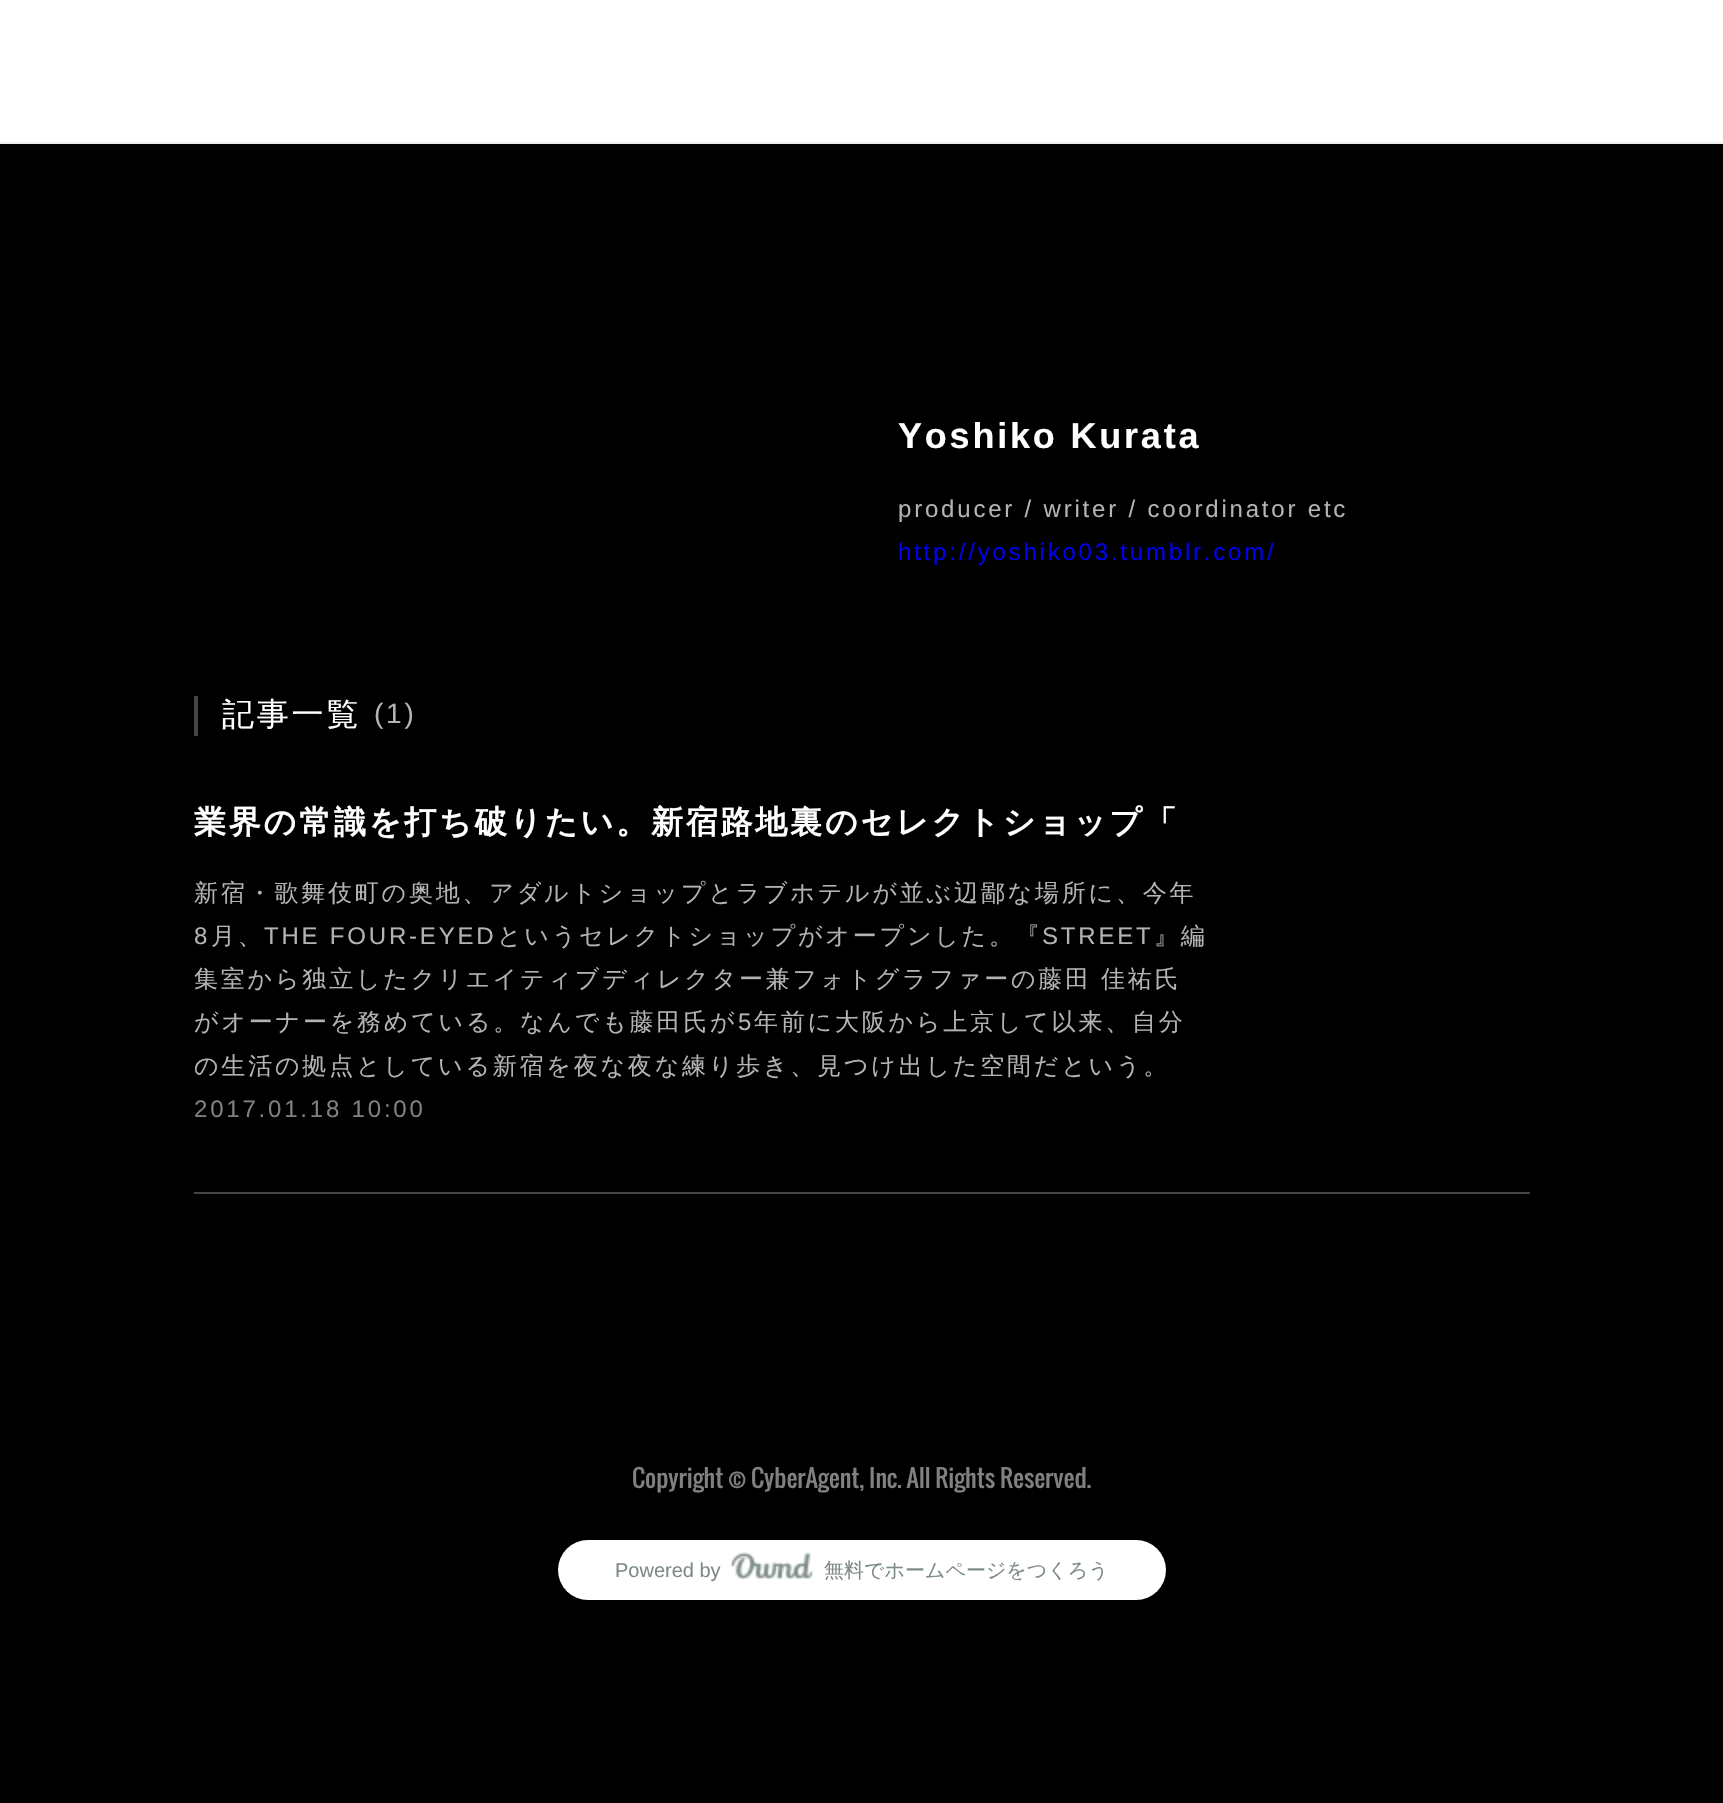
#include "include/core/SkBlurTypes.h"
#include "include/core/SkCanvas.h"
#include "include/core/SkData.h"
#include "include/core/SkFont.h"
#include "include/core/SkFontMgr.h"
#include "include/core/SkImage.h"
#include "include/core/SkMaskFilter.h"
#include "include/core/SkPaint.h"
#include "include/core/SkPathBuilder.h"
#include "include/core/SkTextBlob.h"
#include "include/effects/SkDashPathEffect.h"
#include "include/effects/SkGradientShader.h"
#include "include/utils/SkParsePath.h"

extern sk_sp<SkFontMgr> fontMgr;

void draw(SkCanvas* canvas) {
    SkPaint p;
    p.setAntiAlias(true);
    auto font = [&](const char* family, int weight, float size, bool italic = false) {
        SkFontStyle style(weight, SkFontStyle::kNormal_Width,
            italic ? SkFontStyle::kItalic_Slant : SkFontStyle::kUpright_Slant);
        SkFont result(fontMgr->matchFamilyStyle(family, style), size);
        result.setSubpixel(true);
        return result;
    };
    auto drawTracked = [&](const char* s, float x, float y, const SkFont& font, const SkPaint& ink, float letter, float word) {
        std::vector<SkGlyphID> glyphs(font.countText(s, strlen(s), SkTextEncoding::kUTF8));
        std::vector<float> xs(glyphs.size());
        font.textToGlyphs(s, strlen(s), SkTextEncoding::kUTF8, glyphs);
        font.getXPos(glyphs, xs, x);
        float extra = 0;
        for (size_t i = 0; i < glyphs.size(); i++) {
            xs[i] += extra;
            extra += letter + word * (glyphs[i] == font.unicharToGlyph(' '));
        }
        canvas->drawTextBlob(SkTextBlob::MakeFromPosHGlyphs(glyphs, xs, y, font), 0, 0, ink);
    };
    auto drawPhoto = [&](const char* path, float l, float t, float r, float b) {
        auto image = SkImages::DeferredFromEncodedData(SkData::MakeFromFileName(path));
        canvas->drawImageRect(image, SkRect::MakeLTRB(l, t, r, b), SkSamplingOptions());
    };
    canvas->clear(0xFF000000);
    p.setColor(0xFFFFFFFF);
    canvas->drawRect(SkRect::MakeLTRB(0, 0, 1723, 142), p);
    p.setColor(0xFFEEEEEE);
    canvas->drawRect(SkRect::MakeLTRB(0, 142, 1723, 144), p);
    auto font1 = font("Liberation Sans", 700, 36);
    p.setColor(0xFFFFFFFF);
    drawTracked("Yoshiko Kurata", 898, 448, font1, p, 2.8f, 0);
    auto font2 = font("Liberation Sans", 400, 24);
    p.setColor(0xFFB3B3B3);
    drawTracked("producer / writer / coordinator etc", 898, 517, font2, p, 2.8f, 0);
    p.setColor(0xFF0000EE);
    drawTracked("http://yoshiko03.tumblr.com/", 898, 560, font2, p, 2.8f, 0);
    p.setColor(0xFF444444);
    canvas->drawRect(SkRect::MakeLTRB(194, 696, 198, 736), p);
    auto font3 = font("WenQuanYi Zen Hei", 500, 32);
    p.setColor(0xFFFFFFFF);
    drawTracked("記事一覧", 222, 725, font3, p, 2.8f, 0);
    auto font4 = font("Liberation Sans", 400, 28);
    p.setColor(0xFFB3B3B3);
    drawTracked("(1)", 374, 723, font4, p, 2.8f, 0);
    p.setColor(0xFF444444);
    canvas->drawRect(SkRect::MakeLTRB(194, 1192, 1530, 1194), p);
    auto font5 = font("WenQuanYi Zen Hei", 700, 32);
    p.setColor(0xFFFFFFFF);
    drawTracked("業界の常識を打ち破りたい。新宿路地裏のセレクトショップ「", 194, 833, font5, p, 2.8f, 0);
    auto font6 = font("WenQuanYi Zen Hei", 500, 24);
    p.setColor(0xFFB3B3B3);
    drawTracked("新宿・歌舞伎町の奥地、アダルトショップとラブホテルが並ぶ辺鄙な場所に、今年", 194, 901, font6, p, 2.8f, 0);
    drawTracked("8", 194, 944, font2, p, 2.8f, 0);
    drawTracked("月、", 211, 944, font6, p, 2.8f, 0);
    drawTracked("THE FOUR-EYED", 264, 944, font2, p, 2.8f, 0);
    drawTracked("というセレクトショップがオープンした。『", 497, 944, font6, p, 2.8f, 0);
    drawTracked("STREET", 1042, 944, font2, p, 2.8f, 0);
    drawTracked("』編", 1154, 944, font6, p, 2.8f, 0);
    drawTracked("集室から独立したクリエイティブディレクター兼フォトグラファーの藤田 佳祐氏", 194, 987, font6, p, 2.8f, -1);
    drawTracked("がオーナーを務めている。なんでも藤田氏が", 194, 1030, font6, p, 2.8f, 0);
    drawTracked("5", 738, 1030, font2, p, 2.8f, 0);
    drawTracked("年前に大阪から上京して以来、自分", 754, 1030, font6, p, 2.8f, 0);
    drawTracked("の生活の拠点としている新宿を夜な夜な練り歩き、見つけ出した空間だという。", 194, 1074, font6, p, 2.8f, 0);
    p.setColor(0xFF808080);
    drawTracked("2017.01.18 10:00", 194, 1117, font2, p, 2.8f, 0);
    auto font7 = font("Oswald", 400, 24);
    canvas->drawString("Copyright © CyberAgent, Inc. All Rights Reserved.", 632, 1488, font7, p);
    p.setColor(0xFFFFFFFF);
    canvas->drawRoundRect(SkRect::MakeLTRB(558, 1540, 1166, 1600), 30, 30, p);
    auto font8 = font("Liberation Sans", 400, 20);
    p.setColor(0xFF7D8B88);
    canvas->drawString("Powered by", 615, 1577, font8, p);
    drawPhoto("media/1.png", 730, 1552, 814, 1580);
    auto font9 = font("WenQuanYi Zen Hei", 500, 20);
    canvas->drawString("無料でホームページをつくろう", 824, 1577, font9, p);
}
